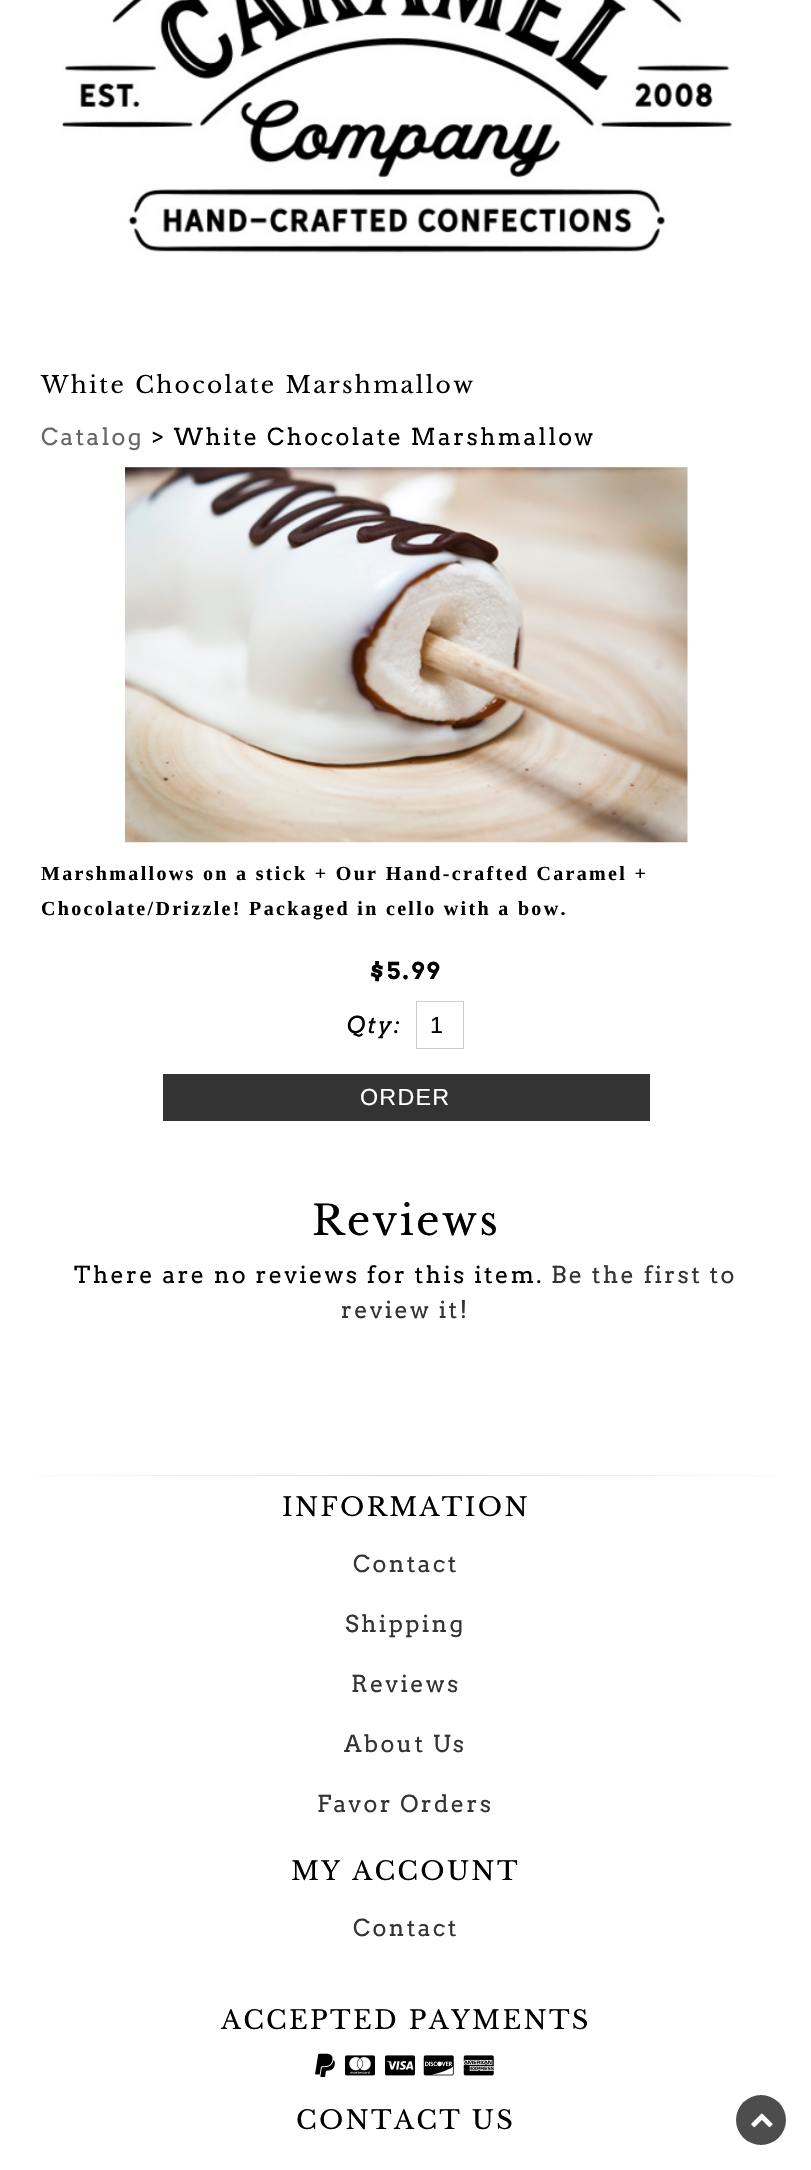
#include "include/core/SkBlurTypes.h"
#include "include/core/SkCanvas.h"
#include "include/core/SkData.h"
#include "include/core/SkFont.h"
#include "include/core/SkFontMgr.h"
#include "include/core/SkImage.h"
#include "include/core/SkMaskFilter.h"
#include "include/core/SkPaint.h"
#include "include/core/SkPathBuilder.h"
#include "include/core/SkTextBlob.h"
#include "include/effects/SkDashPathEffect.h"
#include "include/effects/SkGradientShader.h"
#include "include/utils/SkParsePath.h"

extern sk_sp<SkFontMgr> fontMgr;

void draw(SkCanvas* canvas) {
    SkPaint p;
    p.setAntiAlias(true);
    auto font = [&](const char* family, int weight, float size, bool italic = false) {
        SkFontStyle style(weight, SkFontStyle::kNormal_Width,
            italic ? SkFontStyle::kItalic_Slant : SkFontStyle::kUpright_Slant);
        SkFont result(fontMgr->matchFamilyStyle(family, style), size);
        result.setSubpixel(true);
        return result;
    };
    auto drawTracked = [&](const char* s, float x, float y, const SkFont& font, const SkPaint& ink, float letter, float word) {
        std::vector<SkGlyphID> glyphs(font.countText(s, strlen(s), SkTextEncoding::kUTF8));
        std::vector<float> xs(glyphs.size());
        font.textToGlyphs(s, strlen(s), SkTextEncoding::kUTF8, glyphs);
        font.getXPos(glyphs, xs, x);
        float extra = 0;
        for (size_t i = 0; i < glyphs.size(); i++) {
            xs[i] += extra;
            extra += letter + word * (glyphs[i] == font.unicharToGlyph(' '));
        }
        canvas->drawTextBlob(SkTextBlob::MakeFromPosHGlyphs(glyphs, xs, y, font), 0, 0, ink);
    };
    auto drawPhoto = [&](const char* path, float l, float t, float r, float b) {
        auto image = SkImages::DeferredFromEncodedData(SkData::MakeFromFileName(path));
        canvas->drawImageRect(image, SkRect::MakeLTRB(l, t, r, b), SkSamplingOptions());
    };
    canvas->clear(0xFFFFFFFF);
    drawPhoto("media/1.png", 61, 0, 732, 253);
    auto font1 = font("Libre Baskerville", 400, 23.3f);
    p.setColor(0xFF000000);
    drawTracked("White Chocolate Marshmallow", 41, 393, font1, p, 2.33f, 0);
    auto font2 = font("Arvo", 400, 23.3f);
    p.setColor(0xFF666666);
    drawTracked("Catalog", 41, 445, font2, p, 2.33f, 0);
    p.setColor(0xFF000000);
    drawTracked("> White Chocolate Marshmallow", 151, 445, font2, p, 2.33f, 0);
    drawPhoto("media/2.png", 125, 467, 688, 843);
    auto font3 = font("Liberation Serif", 700, 20);
    drawTracked("Marshmallows on a stick + Our Hand-crafted Caramel +", 41, 880, font3, p, 2.33f, 0);
    drawTracked("Chocolate/Drizzle! Packaged in cello with a bow.", 41, 915, font3, p, 2.33f, 0);
    auto font4 = font("Arvo", 700, 23.3f);
    drawTracked("$5.99", 370, 979, font4, p, 2.33f, 0);
    auto font5 = font("Arvo", 400, 23.3f, true);
    drawTracked("Qty:", 347, 1033, font5, p, 2.33f, 0);
    p.setStyle(SkPaint::kStroke_Style);
    p.setStrokeWidth(1);
    p.setColor(0xFFCCCCCC);
    canvas->drawRect(SkRect::MakeLTRB(416.5f, 1001.5f, 463.5f, 1048.5f), p);
    auto font6 = font("Liberation Sans", 400, 23.3f);
    p.setStyle(SkPaint::kFill_Style);
    p.setColor(0xFF000000);
    canvas->drawString("1", 430, 1033, font6, p);
    p.setColor(0xFF333333);
    canvas->drawRect(SkRect::MakeLTRB(163, 1074, 650, 1121), p);
    p.setColor(0xFFFFFFFF);
    drawTracked("ORDER", 360, 1105, font6, p, 1.25f, 0);
    auto font7 = font("Libre Baskerville", 400, 41);
    p.setColor(0xFF000000);
    drawTracked("Reviews", 312, 1235, font7, p, 2.33f, 0);
    drawTracked("There are no reviews for this item.", 74, 1283, font2, p, 2.33f, 0);
    p.setColor(0xFF333333);
    drawTracked("Be the first to", 551, 1283, font2, p, 2.33f, 0);
    drawTracked("review it!", 341, 1318, font2, p, 2.33f, 0);
    {
        const SkColor colors[] = {0xFFFFFFFF, 0xFFD9D9D9, 0xFFFFFFFF};
        const float stops[] = {0, 0.5f, 1};
        const SkPoint ends[] = {{0, 1476}, {811, 1476}};
        p.setShader(SkGradientShader::MakeLinear(ends, colors, stops, 3, SkTileMode::kClamp));
        p.setAlpha(255);
    }
    canvas->drawRect(SkRect::MakeLTRB(27, 1475, 784, 1476), p);
    auto font8 = font("Libre Baskerville", 400, 25.7f);
    p.setShader(nullptr);
    p.setColor(0xFF000000);
    drawTracked("INFORMATION", 282, 1516, font8, p, 2.33f, 0);
    p.setColor(0xFF333333);
    {
        const struct { const char* s; float x, y; } items[] = {
            {"Contact", 353, 1572},
            {"Shipping", 345, 1632},
            {"Reviews", 351, 1692},
            {"About Us", 344, 1752},
            {"Favor Orders", 317, 1812},
        };
        for (auto [s, x, y] : items) {
            drawTracked(s, x, y, font2, p, 2.33f, 0);
        }
    }
    p.setColor(0xFF000000);
    drawTracked("MY ACCOUNT", 291, 1880, font8, p, 2.33f, 0);
    p.setColor(0xFF333333);
    drawTracked("Contact", 353, 1936, font2, p, 2.33f, 0);
    p.setColor(0xFF000000);
    drawTracked("ACCEPTED PAYMENTS", 221, 2029, font8, p, 2.33f, 0);
    drawPhoto("media/3.png", 315, 2053, 335, 2078);
    drawPhoto("media/4.png", 345, 2055, 375, 2076);
    drawPhoto("media/5.png", 385, 2055, 415, 2076);
    drawPhoto("media/6.png", 423, 2055, 454, 2076);
    drawPhoto("media/7.png", 463, 2055, 494, 2076);
    drawTracked("CONTACT US", 296, 2129, font8, p, 2.33f, 0);
    p.setColor(0xFF4D4D4D);
    canvas->drawCircle(761, 2120, 25, p);
    drawPhoto("media/8.png", 751, 2113, 773, 2128);
}
